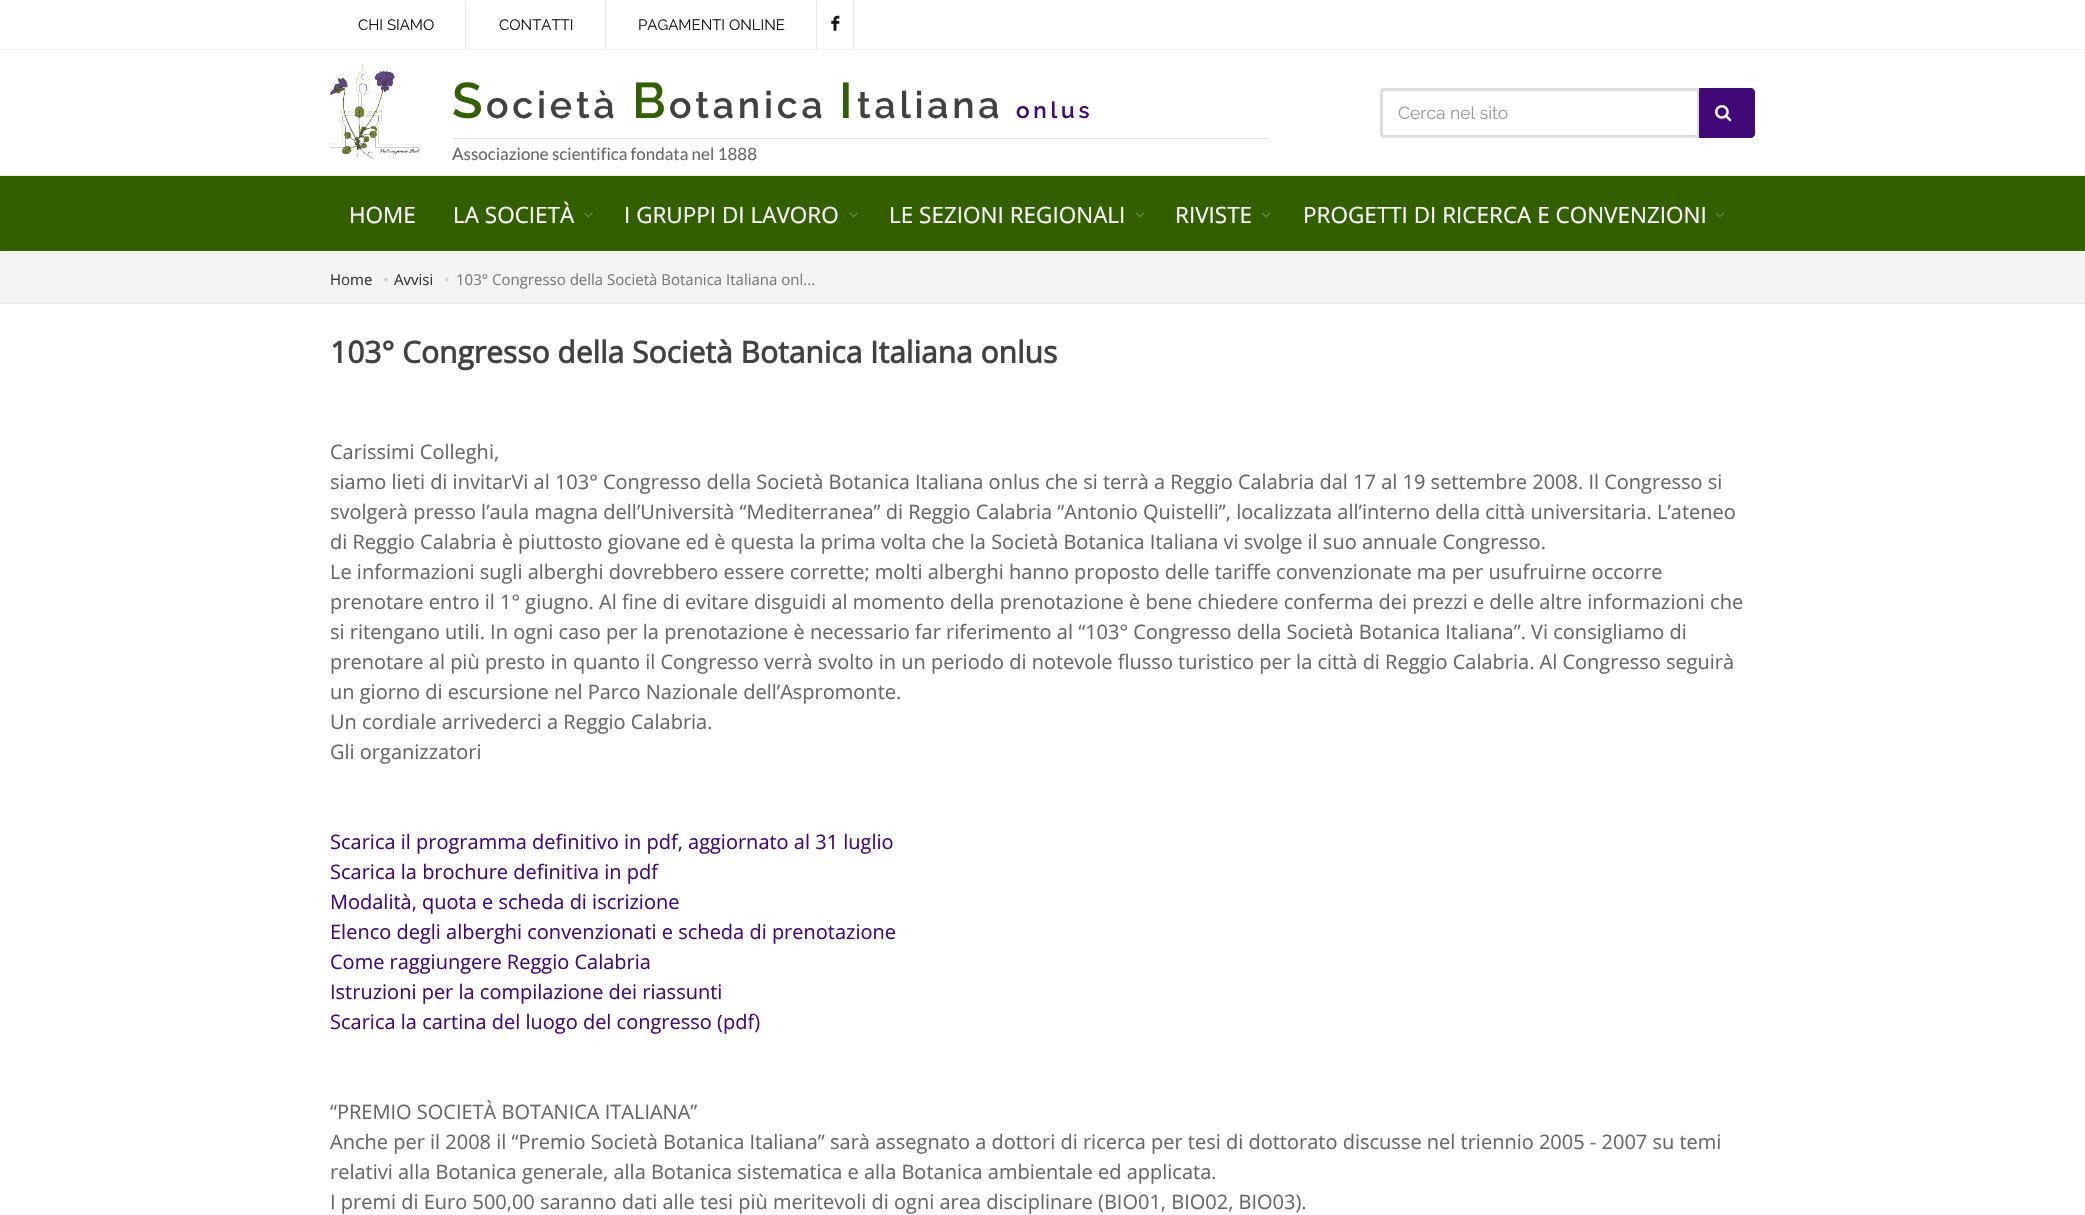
#include "include/core/SkBlurTypes.h"
#include "include/core/SkCanvas.h"
#include "include/core/SkData.h"
#include "include/core/SkFont.h"
#include "include/core/SkFontMgr.h"
#include "include/core/SkImage.h"
#include "include/core/SkMaskFilter.h"
#include "include/core/SkPaint.h"
#include "include/core/SkPathBuilder.h"
#include "include/core/SkTextBlob.h"
#include "include/effects/SkDashPathEffect.h"
#include "include/effects/SkGradientShader.h"
#include "include/utils/SkParsePath.h"

extern sk_sp<SkFontMgr> fontMgr;

void draw(SkCanvas* canvas) {
    SkPaint p;
    p.setAntiAlias(true);
    auto font = [&](const char* family, int weight, float size, bool italic = false) {
        SkFontStyle style(weight, SkFontStyle::kNormal_Width,
            italic ? SkFontStyle::kItalic_Slant : SkFontStyle::kUpright_Slant);
        SkFont result(fontMgr->matchFamilyStyle(family, style), size);
        result.setSubpixel(true);
        return result;
    };
    auto drawTracked = [&](const char* s, float x, float y, const SkFont& font, const SkPaint& ink, float letter, float word) {
        std::vector<SkGlyphID> glyphs(font.countText(s, strlen(s), SkTextEncoding::kUTF8));
        std::vector<float> xs(glyphs.size());
        font.textToGlyphs(s, strlen(s), SkTextEncoding::kUTF8, glyphs);
        font.getXPos(glyphs, xs, x);
        float extra = 0;
        for (size_t i = 0; i < glyphs.size(); i++) {
            xs[i] += extra;
            extra += letter + word * (glyphs[i] == font.unicharToGlyph(' '));
        }
        canvas->drawTextBlob(SkTextBlob::MakeFromPosHGlyphs(glyphs, xs, y, font), 0, 0, ink);
    };
    auto drawPhoto = [&](const char* path, float l, float t, float r, float b) {
        auto image = SkImages::DeferredFromEncodedData(SkData::MakeFromFileName(path));
        canvas->drawImageRect(image, SkRect::MakeLTRB(l, t, r, b), SkSamplingOptions());
    };
    canvas->clear(0xFFFFFFFF);
    p.setColor(0xFFF2F2F2);
    canvas->drawRect(SkRect::MakeLTRB(0, 175, 2085, 176), p);
    p.setColor(0xFFE6E6E6);
    canvas->drawRect(SkRect::MakeLTRB(465, 1, 466, 49), p);
    auto font1 = font("Raleway", 400, 15);
    p.setColor(0xFF151515);
    canvas->drawString("CHI SIAMO", 358, 30, font1, p);
    p.setColor(0xFFE6E6E6);
    canvas->drawRect(SkRect::MakeLTRB(605, 1, 606, 49), p);
    p.setColor(0xFF151515);
    canvas->drawString("CONTATTI", 499, 30, font1, p);
    p.setColor(0xFFE6E6E6);
    canvas->drawRect(SkRect::MakeLTRB(816, 1, 817, 49), p);
    p.setColor(0xFF151515);
    canvas->drawString("PAGAMENTI ONLINE", 638, 30, font1, p);
    p.setColor(0xFFE6E6E6);
    canvas->drawRect(SkRect::MakeLTRB(853, 0, 854, 49), p);
    drawPhoto("media/1.png", 831, 15, 840, 31);
    p.setColor(0xFFF2F2F2);
    canvas->drawRect(SkRect::MakeLTRB(0, 49, 2085, 50), p);
    drawPhoto("media/2.png", 330, 63, 421, 159);
    p.setColor(0xFFDDDDDD);
    canvas->drawRect(SkRect::MakeLTRB(453, 138, 1268, 139), p);
    auto font2 = font("Raleway", 600, 50);
    p.setColor(0xFF326001);
    drawTracked("S", 452, 118, font2, p, 3.75f, 0);
    auto font3 = font("Raleway", 600, 37.5f);
    p.setColor(0xFF414141);
    drawTracked("ocietà", 486, 118, font3, p, 3.75f, 0);
    p.setColor(0xFF326001);
    drawTracked("B", 632, 118, font2, p, 3.75f, 0);
    p.setColor(0xFF414141);
    drawTracked("otanica", 669, 118, font3, p, 3.75f, 0);
    p.setColor(0xFF326001);
    drawTracked("I", 839, 118, font2, p, 3.75f, 0);
    p.setColor(0xFF414141);
    drawTracked("taliana", 857, 118, font3, p, 3.75f, 0);
    auto font4 = font("Raleway", 600, 22.5f);
    p.setColor(0xFF420875);
    drawTracked("onlus", 1016, 118, font4, p, 3.75f, 0);
    auto font5 = font("Lato", 400, 17);
    p.setColor(0xFF666666);
    canvas->drawString("Associazione scientifica fondata nel 1888", 452, 160, font5, p);
    p.setStyle(SkPaint::kStroke_Style);
    p.setStrokeWidth(3);
    p.setColor(0xFFDDDDDD);
    canvas->drawPath(SkPathBuilder().moveTo(1384, 89.5f).lineTo(1698.5f, 89.5f).lineTo(1698.5f, 136.5f).lineTo(1384, 136.5f).cubicTo(1382.5f, 136.5f, 1381.5f, 135.5f, 1381.5f, 134).lineTo(1381.5f, 92).cubicTo(1381.5f, 90.5f, 1382.5f, 89.5f, 1384, 89.5f).close().detach(), p);
    auto font6 = font("Raleway", 400, 17.5f);
    p.setStyle(SkPaint::kFill_Style);
    p.setColor(0xFF999999);
    canvas->drawString("Cerca nel sito", 1398, 119, font6, p);
    p.setColor(0xFF420875);
    canvas->drawPath(SkPathBuilder().moveTo(1699.5f, 88.5f).lineTo(1751, 88.5f).cubicTo(1753, 88.5f, 1754.5f, 90, 1754.5f, 92).lineTo(1754.5f, 134).cubicTo(1754.5f, 136, 1753, 137.5f, 1751, 137.5f).lineTo(1699.5f, 137.5f).close().detach(), p);
    p.setStyle(SkPaint::kStroke_Style);
    p.setStrokeWidth(1);
    canvas->drawPath(SkPathBuilder().moveTo(1699.5f, 88.5f).lineTo(1751, 88.5f).cubicTo(1753, 88.5f, 1754.5f, 90, 1754.5f, 92).lineTo(1754.5f, 134).cubicTo(1754.5f, 136, 1753, 137.5f, 1751, 137.5f).lineTo(1699.5f, 137.5f).close().detach(), p);
    drawPhoto("media/3.png", 1715, 105, 1732, 122);
    p.setStyle(SkPaint::kFill_Style);
    p.setColor(0xFFF3F3F3);
    canvas->drawRect(SkRect::MakeLTRB(0, 253, 2085, 303), p);
    p.setColor(0x1A000000);
    p.setMaskFilter(SkMaskFilter::MakeBlur(kNormal_SkBlurStyle, 1));
    canvas->drawRect(SkRect::MakeLTRB(0, 176, 2085, 253), p);
    p.setMaskFilter(nullptr);
    {
        const struct { float l, t, r, b; SkColor color; } items[] = {
            {0, 252, 2085, 253, 0xFFFFFFFF},
            {0, 251, 2085, 252, 0xFFF2F2F2},
            {0, 176, 2085, 251, 0xFF326001},
        };
        for (auto [l, t, r, b, color] : items) {
            p.setColor(color);
            canvas->drawRect(SkRect::MakeLTRB(l, t, r, b), p);
        }
    }
    auto font7 = font("Open Sans", 400, 22.5f);
    p.setColor(0xFFFFFFFF);
    canvas->drawString("HOME", 349, 223, font7, p);
    canvas->drawString("LA SOCIETÀ", 453, 223, font7, p);
    drawPhoto("media/4.png", 584, 212, 593, 218);
    canvas->drawString("I GRUPPI DI LAVORO", 624, 223, font7, p);
    drawPhoto("media/4.png", 849, 212, 858, 218);
    canvas->drawString("LE SEZIONI REGIONALI", 889, 223, font7, p);
    drawPhoto("media/5.png", 1135, 212, 1144, 218);
    canvas->drawString("RIVISTE", 1175, 223, font7, p);
    drawPhoto("media/6.png", 1262, 212, 1271, 218);
    canvas->drawString("PROGETTI DI RICERCA E CONVENZIONI", 1303, 223, font7, p);
    drawPhoto("media/5.png", 1715, 212, 1724, 218);
    p.setColor(0xFFE7E7E7);
    canvas->drawRect(SkRect::MakeLTRB(0, 303, 2085, 304), p);
    auto font8 = font("Open Sans", 400, 15);
    p.setColor(0xFF333333);
    canvas->drawString("Home", 330, 285, font8, p);
    p.setColor(0xFFCCCCCC);
    canvas->drawString("•", 383, 285, font8, p);
    p.setColor(0xFF333333);
    canvas->drawString("Avvisi", 394, 285, font8, p);
    p.setColor(0xFFCCCCCC);
    canvas->drawString("•", 444, 285, font8, p);
    p.setColor(0xFF777777);
    canvas->drawString("103° Congresso della Società Botanica Italiana onl...", 456, 285, font8, p);
    auto font9 = font("Open Sans", 700, 30);
    p.setColor(0xFF414141);
    canvas->drawString("103° Congresso della Società Botanica Italiana onlus", 330, 363, font9, p);
    auto font10 = font("Open Sans", 400, 20);
    p.setColor(0xFF666666);
    {
        const struct { const char* s; float x, y; } items[] = {
            {"Carissimi Colleghi,", 330, 459},
            {"siamo lieti di invitarVi al 103° Congresso della Società Botanica Italiana onlus che si terrà a Reggio Calabria dal 17 al 19 settembre 2008. Il Congresso si", 330, 489},
            {"svolgerà presso l’aula magna dell’Università “Mediterranea” di Reggio Calabria “Antonio Quistelli”, localizzata all’interno della città universitaria. L’ateneo", 330, 519},
            {"di Reggio Calabria è piuttosto giovane ed è questa la prima volta che la Società Botanica Italiana vi svolge il suo annuale Congresso.", 330, 549},
            {"Le informazioni sugli alberghi dovrebbero essere corrette; molti alberghi hanno proposto delle tariffe convenzionate ma per usufruirne occorre", 330, 579},
            {"prenotare entro il 1° giugno. Al fine di evitare disguidi al momento della prenotazione è bene chiedere conferma dei prezzi e delle altre informazioni che", 330, 609},
            {"si ritengano utili. In ogni caso per la prenotazione è necessario far riferimento al “103° Congresso della Società Botanica Italiana”. Vi consigliamo di", 330, 639},
            {"prenotare al più presto in quanto il Congresso verrà svolto in un periodo di notevole flusso turistico per la città di Reggio Calabria. Al Congresso seguirà", 330, 669},
            {"un giorno di escursione nel Parco Nazionale dell’Aspromonte.", 330, 699},
            {"Un cordiale arrivederci a Reggio Calabria.", 330, 729},
            {"Gli organizzatori", 330, 759},
        };
        for (auto [s, x, y] : items) {
            canvas->drawString(s, x, y, font10, p);
        }
    }
    p.setColor(0xFF420875);
    {
        const struct { const char* s; float x, y; } items[] = {
            {"Scarica il programma definitivo in pdf, aggiornato al 31 luglio", 330, 849},
            {"Scarica la brochure definitiva in pdf", 330, 879},
            {"Modalità, quota e scheda di iscrizione", 330, 909},
            {"Elenco degli alberghi convenzionati e scheda di prenotazione", 330, 939},
            {"Come raggiungere Reggio Calabria", 330, 969},
            {"Istruzioni per la compilazione dei riassunti", 330, 999},
            {"Scarica la cartina del luogo del congresso (pdf)", 330, 1029},
        };
        for (auto [s, x, y] : items) {
            canvas->drawString(s, x, y, font10, p);
        }
    }
    p.setColor(0xFF666666);
    {
        const struct { const char* s; float x, y; } items[] = {
            {"“PREMIO SOCIETÀ BOTANICA ITALIANA”", 330, 1119},
            {"Anche per il 2008 il “Premio Società Botanica Italiana” sarà assegnato a dottori di ricerca per tesi di dottorato discusse nel triennio 2005 - 2007 su temi", 330, 1149},
            {"relativi alla Botanica generale, alla Botanica sistematica e alla Botanica ambientale ed applicata.", 330, 1179},
            {"I premi di Euro 500,00 saranno dati alle tesi più meritevoli di ogni area disciplinare (BIO01, BIO02, BIO03).", 330, 1209},
        };
        for (auto [s, x, y] : items) {
            canvas->drawString(s, x, y, font10, p);
        }
    }
}
